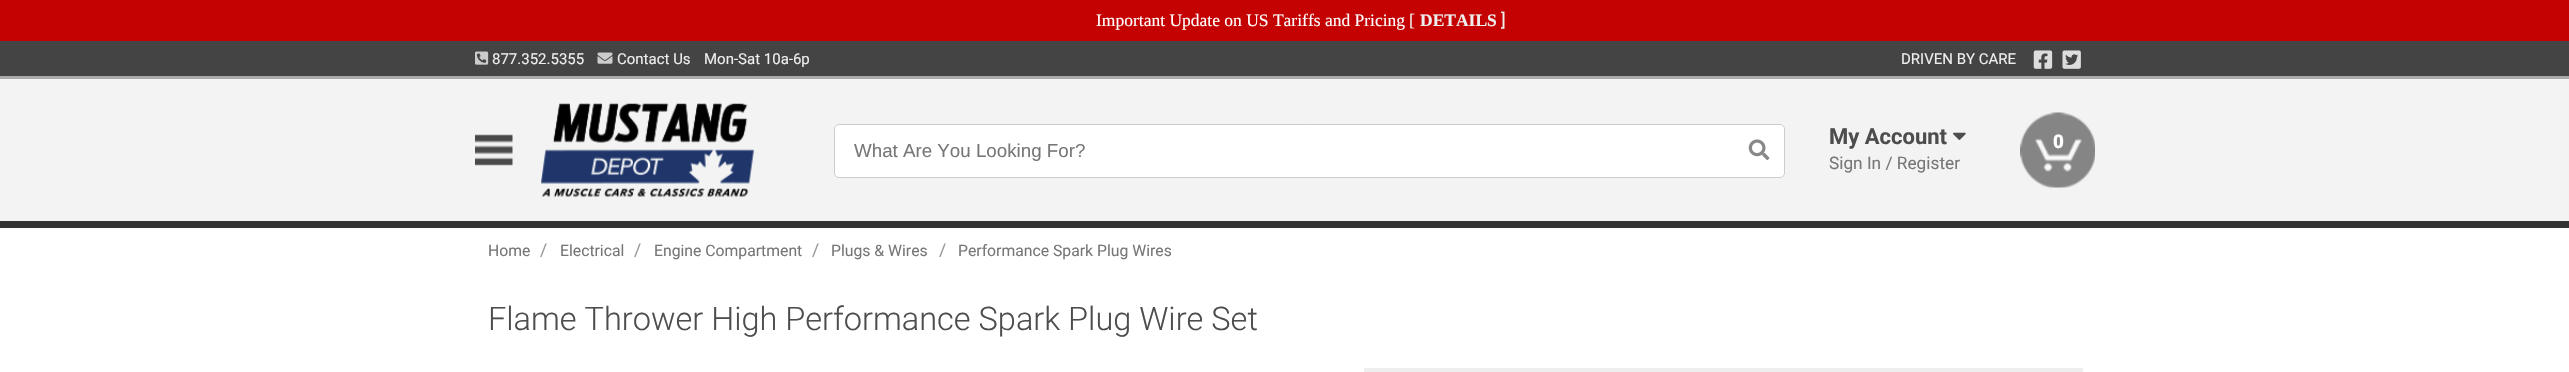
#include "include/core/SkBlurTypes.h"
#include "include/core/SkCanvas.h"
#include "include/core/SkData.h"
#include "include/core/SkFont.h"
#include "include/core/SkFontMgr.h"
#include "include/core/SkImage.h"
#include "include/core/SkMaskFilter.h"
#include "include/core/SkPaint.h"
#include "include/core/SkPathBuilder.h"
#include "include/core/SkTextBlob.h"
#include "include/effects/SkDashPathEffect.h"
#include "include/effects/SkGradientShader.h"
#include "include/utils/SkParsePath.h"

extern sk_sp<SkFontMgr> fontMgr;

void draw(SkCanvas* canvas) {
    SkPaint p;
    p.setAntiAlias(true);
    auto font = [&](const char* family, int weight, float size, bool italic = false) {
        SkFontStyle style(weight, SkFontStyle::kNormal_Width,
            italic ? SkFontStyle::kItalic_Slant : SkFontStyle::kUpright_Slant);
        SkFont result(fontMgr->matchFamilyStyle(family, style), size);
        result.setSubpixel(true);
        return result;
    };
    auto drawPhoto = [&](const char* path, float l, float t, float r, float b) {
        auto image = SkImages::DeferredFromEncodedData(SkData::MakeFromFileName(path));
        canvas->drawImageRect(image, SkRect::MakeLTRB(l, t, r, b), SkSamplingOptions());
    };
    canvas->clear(0xFFF3F3F3);
    {
        const struct { float l, t, r, b; SkColor color; } items[] = {
            {0, 41, 2569, 76, 0xFF444444},
            {0, 76, 2569, 79, 0xFFAAAAAA},
            {0, 0, 2569, 41, 0xFFC40202},
        };
        for (auto [l, t, r, b, color] : items) {
            p.setColor(color);
            canvas->drawRect(SkRect::MakeLTRB(l, t, r, b), p);
        }
    }
    auto font1 = font("Liberation Serif", 400, 17.5f);
    p.setColor(0xFFFFFFFF);
    canvas->drawString("Important Update on US Tariffs and Pricing", 1096, 26, font1, p);
    p.setColor(0xFFEEEEEE);
    canvas->drawString("[", 1409, 26, font1, p);
    auto font2 = font("Liberation Serif", 700, 17.5f);
    canvas->drawString("DETAILS", 1420, 26, font2, p);
    auto font3 = font("Roboto", 400, 17.5f);
    canvas->drawString("]", 1501, 26, font3, p);
    drawPhoto("media/1.png", 475, 51, 489, 65);
    auto font4 = font("Roboto", 400, 15);
    canvas->drawString("877.352.5355", 492, 64, font4, p);
    drawPhoto("media/2.png", 597, 52, 613, 64);
    {
        const struct { const char* s; float x, y; } items[] = {
            {"Contact Us", 617, 64},
            {"Mon-Sat 10a-6p", 704, 64},
            {"DRIVEN BY CARE", 1901, 64},
        };
        for (auto [s, x, y] : items) {
            canvas->drawString(s, x, y, font4, p);
        }
    }
    drawPhoto("media/3.png", 2033, 50, 2053, 69);
    drawPhoto("media/4.png", 2062, 50, 2081, 69);
    p.setColor(0xFF333333);
    canvas->drawRect(SkRect::MakeLTRB(0, 221, 2569, 228), p);
    drawPhoto("media/5.png", 475, 134, 513, 166);
    drawPhoto("media/6.png", 541, 103, 754, 197);
    auto font5 = font("Roboto", 700, 22);
    p.setColor(0xFF4D4D4D);
    canvas->drawString("My Account", 1829, 144, font5, p);
    drawPhoto("media/7.png", 1953, 132, 1966, 140);
    auto font6 = font("Roboto", 400, 17.25f);
    p.setColor(0xFF777777);
    canvas->drawString("Sign In / Register", 1829, 169, font6, p);
    drawPhoto("media/8.png", 2020, 112, 2095, 188);
    auto font7 = font("Roboto", 900, 18.75f);
    p.setColor(0xFFFFFFFF);
    canvas->drawString("0", 2053, 148, font7, p);
    canvas->drawRoundRect(SkRect::MakeLTRB(834.5f, 124.5f, 1784.5f, 177.5f), 4.5f, 4.5f, p);
    p.setStyle(SkPaint::kStroke_Style);
    p.setStrokeWidth(1);
    p.setColor(0xFFCCCCCC);
    canvas->drawRoundRect(SkRect::MakeLTRB(834.5f, 124.5f, 1784.5f, 177.5f), 4.5f, 4.5f, p);
    auto font8 = font("Liberation Sans", 400, 18.75f);
    p.setStyle(SkPaint::kFill_Style);
    p.setColor(0xFF777777);
    canvas->drawString("What Are You Looking For?", 854, 157, font8, p);
    drawPhoto("media/9.png", 1748, 139, 1770, 160);
    p.setColor(0xFFFFFFFF);
    canvas->drawRect(SkRect::MakeLTRB(0, 228, 2569, 372), p);
    auto font9 = font("Roboto", 400, 15.75f);
    p.setColor(0xFF777777);
    canvas->drawString("Home", 488, 256, font9, p);
    p.setColor(0xFF999999);
    canvas->drawString("/", 540, 256, font3, p);
    p.setColor(0xFF777777);
    canvas->drawString("Electrical", 560, 256, font9, p);
    p.setColor(0xFF999999);
    canvas->drawString("/", 634, 256, font3, p);
    p.setColor(0xFF777777);
    canvas->drawString("Engine Compartment", 654, 256, font9, p);
    p.setColor(0xFF999999);
    canvas->drawString("/", 812, 256, font3, p);
    p.setColor(0xFF777777);
    canvas->drawString("Plugs & Wires", 831, 256, font9, p);
    p.setColor(0xFF999999);
    canvas->drawString("/", 939, 256, font3, p);
    p.setColor(0xFF777777);
    canvas->drawString("Performance Spark Plug Wires", 958, 256, font9, p);
    auto font10 = font("Roboto", 300, 32.5f);
    p.setColor(0xFF4D4D4D);
    canvas->drawString("Flame Thrower High Performance Spark Plug Wire Set", 488, 330, font10, p);
    p.setColor(0xFFEEEEEE);
    canvas->drawRect(SkRect::MakeLTRB(1364, 368, 2083, 372), p);
}
